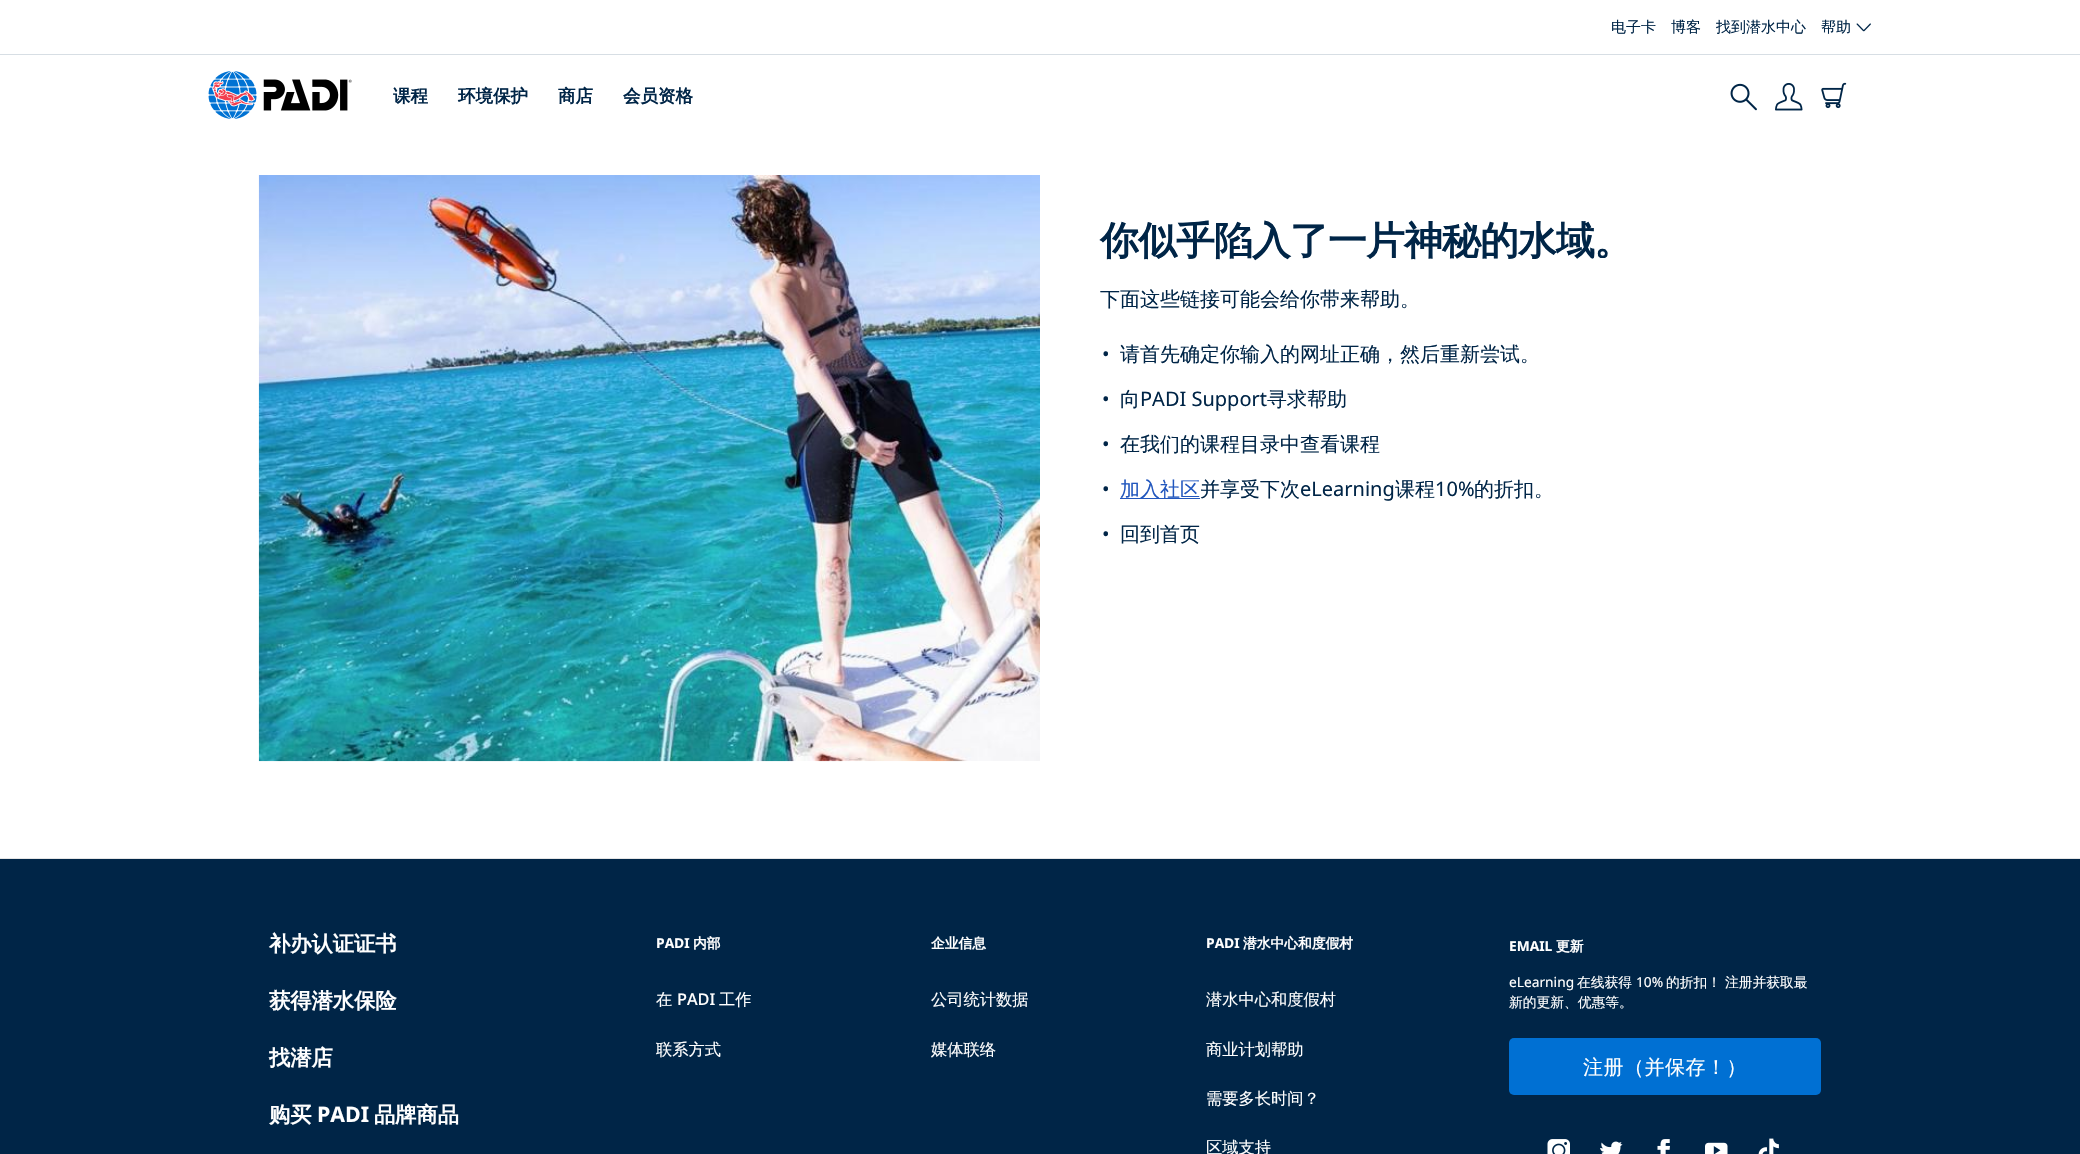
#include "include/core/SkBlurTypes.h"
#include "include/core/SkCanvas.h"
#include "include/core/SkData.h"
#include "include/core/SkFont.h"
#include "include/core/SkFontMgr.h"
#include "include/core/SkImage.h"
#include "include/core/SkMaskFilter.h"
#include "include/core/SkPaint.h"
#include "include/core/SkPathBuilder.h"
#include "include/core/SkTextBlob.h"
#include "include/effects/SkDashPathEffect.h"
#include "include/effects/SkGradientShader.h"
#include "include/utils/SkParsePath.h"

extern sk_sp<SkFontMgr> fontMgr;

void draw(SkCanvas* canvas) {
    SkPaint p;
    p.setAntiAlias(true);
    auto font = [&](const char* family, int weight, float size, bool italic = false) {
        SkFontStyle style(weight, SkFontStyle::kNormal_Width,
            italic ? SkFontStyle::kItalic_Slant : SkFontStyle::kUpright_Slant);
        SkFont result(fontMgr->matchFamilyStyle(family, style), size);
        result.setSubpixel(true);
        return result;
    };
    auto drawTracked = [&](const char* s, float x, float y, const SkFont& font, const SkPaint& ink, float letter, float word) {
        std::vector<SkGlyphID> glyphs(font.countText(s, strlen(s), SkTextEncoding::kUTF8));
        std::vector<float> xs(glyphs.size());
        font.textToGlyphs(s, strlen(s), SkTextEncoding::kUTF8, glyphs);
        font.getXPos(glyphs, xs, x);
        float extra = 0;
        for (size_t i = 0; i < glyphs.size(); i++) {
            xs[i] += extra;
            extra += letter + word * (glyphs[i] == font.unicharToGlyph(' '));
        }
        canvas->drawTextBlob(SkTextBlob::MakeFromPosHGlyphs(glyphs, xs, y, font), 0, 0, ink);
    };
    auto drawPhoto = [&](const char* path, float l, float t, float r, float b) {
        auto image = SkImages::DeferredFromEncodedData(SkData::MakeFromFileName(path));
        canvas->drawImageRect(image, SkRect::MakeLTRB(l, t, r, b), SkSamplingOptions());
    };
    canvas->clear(0xFFFFFFFF);
    p.setColor(0xFFD7DEE4);
    canvas->drawRect(SkRect::MakeLTRB(0, 54, 2080, 55), p);
    auto font1 = font("WenQuanYi Zen Hei", 500, 15);
    p.setColor(0xFF002547);
    {
        const struct { const char* s; float x, y; } items[] = {
            {"电子卡", 1611, 32},
            {"博客", 1671, 32},
            {"找到潜水中心", 1716, 32},
            {"帮助", 1821, 32},
        };
        for (auto [s, x, y] : items) {
            canvas->drawString(s, x, y, font1, p);
        }
    }
    drawPhoto("media/1.png", 1856, 23, 1871, 32);
    drawPhoto("media/2.png", 208, 71, 352, 119);
    auto font2 = font("WenQuanYi Zen Hei", 700, 17.5f);
    {
        const struct { const char* s; float x, y; } items[] = {
            {"课程", 393, 102},
            {"环境保护", 458, 102},
            {"商店", 558, 102},
            {"会员资格", 623, 102},
        };
        for (auto [s, x, y] : items) {
            canvas->drawString(s, x, y, font2, p);
        }
    }
    drawPhoto("media/3.png", 1730, 83, 1757, 111);
    drawPhoto("media/4.png", 1775, 83, 1803, 111);
    drawPhoto("media/5.png", 1821, 82, 1847, 109);
    drawPhoto("media/6.png", 258, 175, 1040, 762);
    auto font3 = font("WenQuanYi Zen Hei", 700, 38.75f);
    drawTracked("你似乎陷入了一片神秘的水域。", 1100, 254, font3, p, -0.75f, 0);
    auto font4 = font("WenQuanYi Zen Hei", 500, 20);
    canvas->drawString("下面这些链接可能会给你带来帮助。", 1100, 306, font4, p);
    auto font5 = font("Noto Sans", 400, 20);
    canvas->drawString("•", 1102, 361, font5, p);
    canvas->drawString("请首先确定你输入的网址正确，然后重新尝试。", 1120, 361, font4, p);
    canvas->drawString("•", 1102, 406, font5, p);
    canvas->drawString("向", 1120, 406, font4, p);
    canvas->drawString("PADI Support", 1140, 406, font5, p);
    canvas->drawString("寻求帮助", 1267, 406, font4, p);
    canvas->drawString("•", 1102, 451, font5, p);
    canvas->drawString("在我们的课程目录中查看课程", 1120, 451, font4, p);
    canvas->drawString("•", 1102, 496, font5, p);
    p.setColor(0xFF2257BE);
    canvas->drawRect(SkRect::MakeLTRB(1120, 498, 1200, 499), p);
    canvas->drawString("加入社区", 1120, 496, font4, p);
    p.setColor(0xFF002547);
    canvas->drawString("并享受下次", 1200, 496, font4, p);
    canvas->drawString("eLearning", 1300, 496, font5, p);
    canvas->drawString("课程", 1395, 496, font4, p);
    canvas->drawString("10%", 1435, 496, font5, p);
    canvas->drawString("的折扣。", 1474, 496, font4, p);
    canvas->drawString("•", 1102, 541, font5, p);
    canvas->drawString("回到首页", 1120, 541, font4, p);
    canvas->drawRect(SkRect::MakeLTRB(0, 859, 2080, 1154), p);
    p.setColor(0xFFE5E5E5);
    canvas->drawRect(SkRect::MakeLTRB(0, 858, 2080, 859), p);
    auto font6 = font("WenQuanYi Zen Hei", 700, 21.25f);
    p.setColor(0xFFFFFFFF);
    {
        const struct { const char* s; float x, y; } items[] = {
            {"补办认证证书", 269, 951},
            {"获得潜水保险", 269, 1008},
            {"找潜店", 269, 1065},
            {"购买", 269, 1122},
        };
        for (auto [s, x, y] : items) {
            canvas->drawString(s, x, y, font6, p);
        }
    }
    auto font7 = font("Noto Sans", 700, 21.25f);
    canvas->drawString("PADI", 317, 1122, font7, p);
    canvas->drawString("品牌商品", 374, 1122, font6, p);
    auto font8 = font("Noto Sans", 700, 13.75f);
    canvas->drawString("PADI", 656, 948, font8, p);
    auto font9 = font("WenQuanYi Zen Hei", 700, 13.75f);
    canvas->drawString("内部", 693, 948, font9, p);
    auto font10 = font("WenQuanYi Zen Hei", 500, 16.25f);
    canvas->drawString("在", 656, 1005, font10, p);
    auto font11 = font("Noto Sans", 500, 16.25f);
    canvas->drawString("PADI", 677, 1005, font11, p);
    canvas->drawString("工作", 719, 1005, font10, p);
    canvas->drawString("联系方式", 656, 1055, font10, p);
    canvas->drawString("企业信息", 931, 948, font9, p);
    canvas->drawString("公司统计数据", 931, 1005, font10, p);
    canvas->drawString("媒体联络", 931, 1055, font10, p);
    canvas->drawString("PADI", 1206, 948, font8, p);
    canvas->drawString("潜水中心和度假村", 1243, 948, font9, p);
    {
        const struct { const char* s; float x, y; } items[] = {
            {"潜水中心和度假村", 1206, 1005},
            {"商业计划帮助", 1206, 1055},
            {"需要多长时间？", 1206, 1104},
            {"区域支持", 1206, 1153},
        };
        for (auto [s, x, y] : items) {
            canvas->drawString(s, x, y, font10, p);
        }
    }
    canvas->drawString("EMAIL", 1509, 951, font8, p);
    canvas->drawString("更新", 1556, 951, font9, p);
    auto font12 = font("Noto Sans", 400, 13.75f);
    canvas->drawString("eLearning", 1509, 987, font12, p);
    auto font13 = font("WenQuanYi Zen Hei", 500, 13.75f);
    canvas->drawString("在线获得", 1577, 987, font13, p);
    canvas->drawString("10%", 1636, 987, font12, p);
    canvas->drawString("的折扣！ 注册并获取最", 1666, 987, font13, p);
    canvas->drawString("新的更新、优惠等。", 1509, 1007, font13, p);
    p.setColor(0xFF0070D3);
    canvas->drawRoundRect(SkRect::MakeLTRB(1509, 1038, 1821, 1095), 5, 5, p);
    p.setColor(0xFFFFFFFF);
    drawTracked("注册（并保存！）", 1583, 1074, font4, p, 0.5f, 0);
    drawPhoto("media/7.png", 1547, 1139, 1570, 1154);
    drawPhoto("media/8.png", 1600, 1141, 1623, 1154);
    drawPhoto("media/9.png", 1657, 1139, 1670, 1154);
    drawPhoto("media/10.png", 1705, 1142, 1728, 1154);
    drawPhoto("media/11.png", 1758, 1138, 1779, 1154);
}
